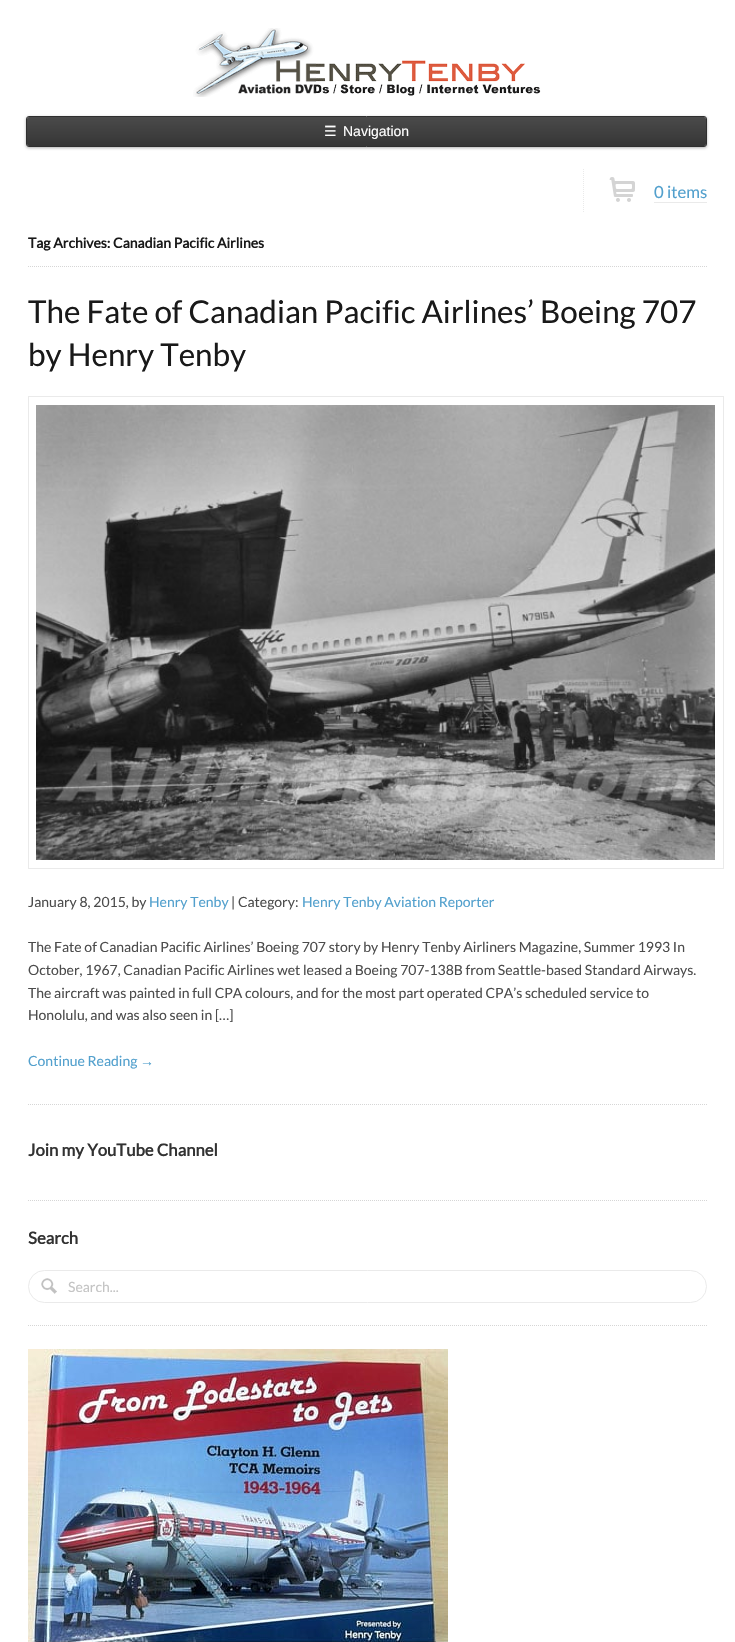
#include "include/core/SkBlurTypes.h"
#include "include/core/SkCanvas.h"
#include "include/core/SkData.h"
#include "include/core/SkFont.h"
#include "include/core/SkFontMgr.h"
#include "include/core/SkImage.h"
#include "include/core/SkMaskFilter.h"
#include "include/core/SkPaint.h"
#include "include/core/SkPathBuilder.h"
#include "include/core/SkTextBlob.h"
#include "include/effects/SkDashPathEffect.h"
#include "include/effects/SkGradientShader.h"
#include "include/utils/SkParsePath.h"

extern sk_sp<SkFontMgr> fontMgr;

void draw(SkCanvas* canvas) {
    SkPaint p;
    p.setAntiAlias(true);
    auto font = [&](const char* family, int weight, float size, bool italic = false) {
        SkFontStyle style(weight, SkFontStyle::kNormal_Width,
            italic ? SkFontStyle::kItalic_Slant : SkFontStyle::kUpright_Slant);
        SkFont result(fontMgr->matchFamilyStyle(family, style), size);
        result.setSubpixel(true);
        return result;
    };
    auto drawPhoto = [&](const char* path, float l, float t, float r, float b) {
        auto image = SkImages::DeferredFromEncodedData(SkData::MakeFromFileName(path));
        canvas->drawImageRect(image, SkRect::MakeLTRB(l, t, r, b), SkSamplingOptions());
    };
    canvas->clear(0xFFFFFFFF);
    drawPhoto("media/1.png", 193, 28, 541, 97);
    p.setColor(0x4D000000);
    p.setMaskFilter(SkMaskFilter::MakeBlur(kNormal_SkBlurStyle, 1.5f));
    canvas->drawRoundRect(SkRect::MakeLTRB(26, 117, 707, 148), 3, 3, p);
    p.setMaskFilter(nullptr);
    {
        const SkColor colors[] = {0xFF4A4A4A, 0xFF363636};
        const float stops[] = {0, 1};
        const SkPoint ends[] = {{367, 117}, {367, 146}};
        p.setShader(SkGradientShader::MakeLinear(ends, colors, stops, 2, SkTileMode::kClamp));
        p.setAlpha(255);
    }
    canvas->drawRoundRect(SkRect::MakeLTRB(27, 117, 706, 146), 2, 2, p);
    p.setStyle(SkPaint::kStroke_Style);
    p.setStrokeWidth(1);
    p.setShader(nullptr);
    p.setColor(0xFF2F2F2F);
    canvas->drawRoundRect(SkRect::MakeLTRB(26.5f, 116.5f, 706.5f, 146.5f), 2.5f, 2.5f, p);
    auto font1 = font("DejaVu Sans", 400, 14);
    p.setStyle(SkPaint::kFill_Style);
    p.setColor(0xFFFFFFFF);
    canvas->drawString("☰", 324, 136, font1, p);
    auto font2 = font("Liberation Sans", 400, 14);
    canvas->drawString("Navigation", 343, 136, font2, p);
    p.setStyle(SkPaint::kStroke_Style);
    p.setColor(0xFFEAEAEA);
    p.setPathEffect(SkDashPathEffect::Make({{1, 1}}, 0));
    canvas->drawPath(SkPathBuilder().moveTo(583.5f, 169).lineTo(583.5f, 213).detach(), p);
    p.setPathEffect(nullptr);
    drawPhoto("media/2.png", 609, 177, 635, 202);
    auto font3 = font("Lato", 400, 16.75f);
    p.setStyle(SkPaint::kFill_Style);
    p.setColor(0xFF52A0CD);
    canvas->drawString("0 items", 654, 198, font3, p);
    p.setColor(0xFFEAEAEA);
    canvas->drawRect(SkRect::MakeLTRB(654, 202, 707, 203), p);
    p.setStyle(SkPaint::kStroke_Style);
    p.setColor(0xFFD6D6D6);
    p.setPathEffect(SkDashPathEffect::Make({{1, 1}}, 0));
    canvas->drawPath(SkPathBuilder().moveTo(28, 266.5f).lineTo(707, 266.5f).detach(), p);
    p.setPathEffect(nullptr);
    auto font4 = font("Lato", 700, 14);
    p.setStyle(SkPaint::kFill_Style);
    p.setColor(0xFF191919);
    canvas->drawString("Tag Archives: Canadian Pacific Airlines", 28, 248, font4, p);
    p.setStyle(SkPaint::kStroke_Style);
    p.setColor(0xFFD6D6D6);
    p.setPathEffect(SkDashPathEffect::Make({{1, 1}}, 0));
    canvas->drawPath(SkPathBuilder().moveTo(28, 1104.5f).lineTo(707, 1104.5f).detach(), p);
    p.setPathEffect(nullptr);
    auto font5 = font("Lato", 400, 31.4f);
    p.setStyle(SkPaint::kFill_Style);
    p.setColor(0xFF191919);
    canvas->drawString("The Fate of Canadian Pacific Airlines’ Boeing 707", 28, 323, font5, p);
    canvas->drawString("by Henry Tenby", 28, 366, font5, p);
    p.setStyle(SkPaint::kStroke_Style);
    p.setColor(0xFFEAEAEA);
    canvas->drawRect(SkRect::MakeLTRB(28.5f, 396.5f, 723.5f, 868.5f), p);
    drawPhoto("media/3.png", 36, 405, 715, 860);
    auto font6 = font("Lato", 400, 14);
    p.setStyle(SkPaint::kFill_Style);
    p.setColor(0xFF4C4C4C);
    canvas->drawString("January 8, 2015, by", 28, 907, font6, p);
    p.setColor(0xFF52A0CD);
    canvas->drawString("Henry Tenby", 149, 907, font6, p);
    p.setColor(0xFF4C4C4C);
    canvas->drawString("| Category:", 231, 907, font6, p);
    p.setColor(0xFF52A0CD);
    canvas->drawString("Henry Tenby Aviation Reporter", 302, 907, font6, p);
    p.setColor(0xFF4C4C4C);
    {
        const struct { const char* s; float x, y; } items[] = {
            {"The Fate of Canadian Pacific Airlines’ Boeing 707 story by Henry Tenby Airliners Magazine, Summer 1993 In", 28, 952},
            {"October, 1967, Canadian Pacific Airlines wet leased a Boeing 707-138B from Seattle-based Standard Airways.", 28, 975},
            {"The aircraft was painted in full CPA colours, and for the most part operated CPA’s scheduled service to", 28, 998},
            {"Honolulu, and was also seen in […]", 28, 1020},
        };
        for (auto [s, x, y] : items) {
            canvas->drawString(s, x, y, font6, p);
        }
    }
    p.setColor(0xFF52A0CD);
    canvas->drawString("Continue Reading", 28, 1066, font6, p);
    canvas->drawString("→", 140, 1066, font2, p);
    p.setStyle(SkPaint::kStroke_Style);
    p.setColor(0xFFD6D6D6);
    p.setPathEffect(SkDashPathEffect::Make({{1, 1}}, 0));
    canvas->drawPath(SkPathBuilder().moveTo(28, 1200.5f).lineTo(707, 1200.5f).detach(), p);
    p.setPathEffect(nullptr);
    auto font7 = font("Lato", 700, 16.75f);
    p.setStyle(SkPaint::kFill_Style);
    p.setColor(0xFF323232);
    canvas->drawString("Join my YouTube Channel", 28, 1156, font7, p);
    p.setStyle(SkPaint::kStroke_Style);
    p.setColor(0xFFD6D6D6);
    p.setPathEffect(SkDashPathEffect::Make({{1, 1}}, 0));
    canvas->drawPath(SkPathBuilder().moveTo(28, 1325.5f).lineTo(707, 1325.5f).detach(), p);
    p.setPathEffect(nullptr);
    p.setStyle(SkPaint::kFill_Style);
    p.setColor(0xFF323232);
    canvas->drawString("Search", 28, 1244, font7, p);
    p.setStyle(SkPaint::kStroke_Style);
    p.setColor(0xFFEAEAEA);
    canvas->drawRoundRect(SkRect::MakeLTRB(28.5f, 1270.5f, 706.5f, 1302.5f), 16, 16, p);
    drawPhoto("media/4.png", 41, 1278, 57, 1294);
    p.setStyle(SkPaint::kFill_Style);
    p.setColor(0xFFC4C4C4);
    canvas->drawString("Search...", 68, 1292, font6, p);
    drawPhoto("media/5.png", 28, 1349, 448, 1642);
}
